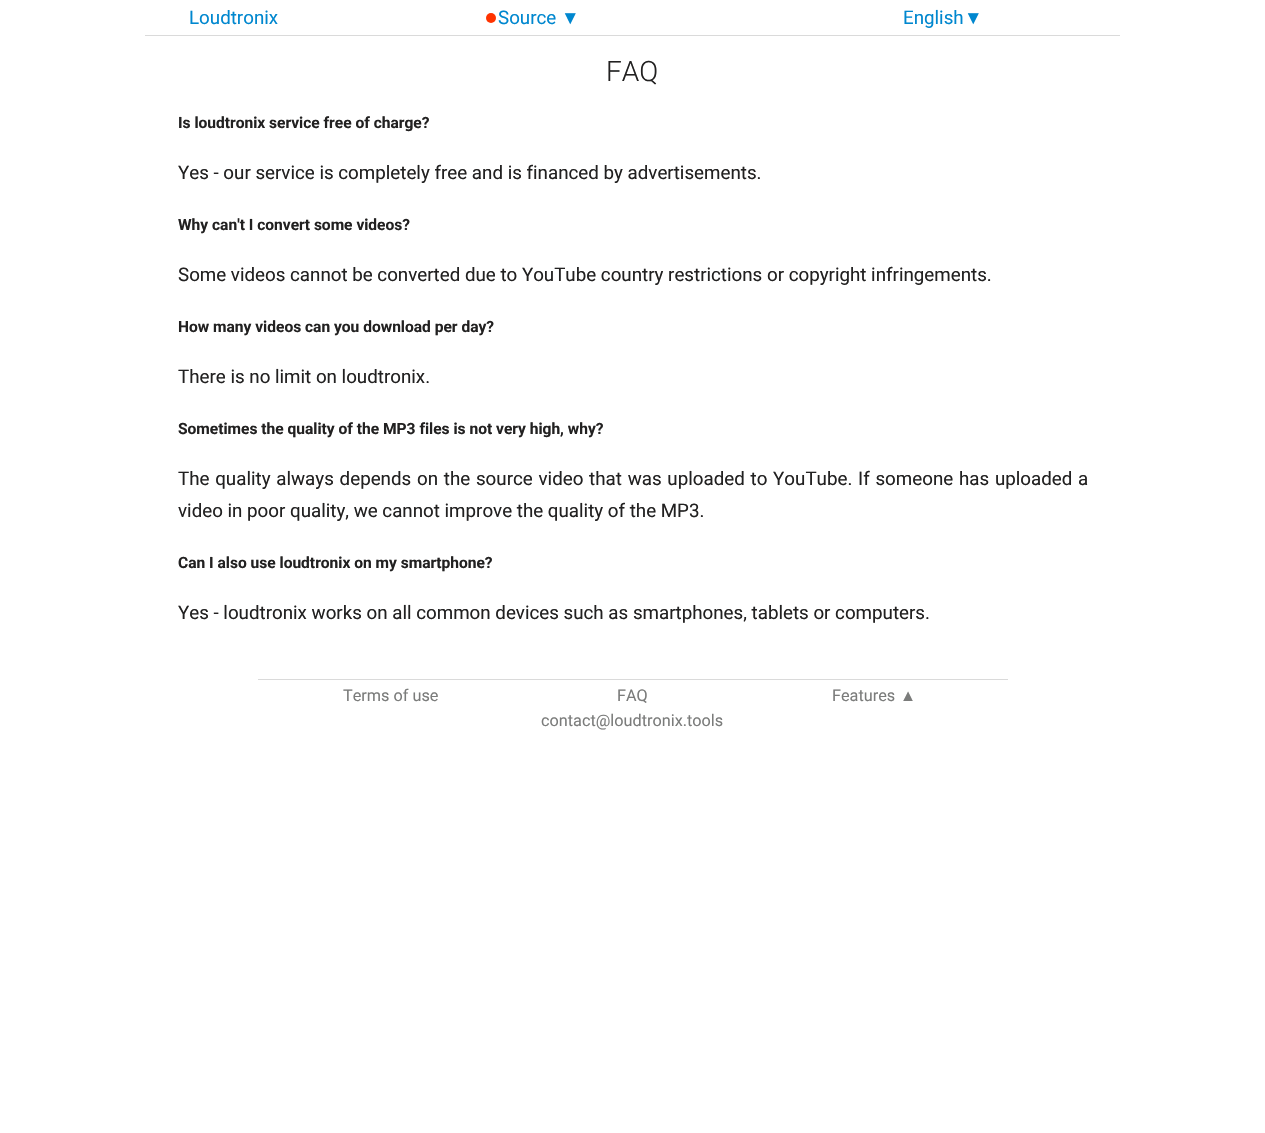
#include "include/core/SkBlurTypes.h"
#include "include/core/SkCanvas.h"
#include "include/core/SkData.h"
#include "include/core/SkFont.h"
#include "include/core/SkFontMgr.h"
#include "include/core/SkImage.h"
#include "include/core/SkMaskFilter.h"
#include "include/core/SkPaint.h"
#include "include/core/SkPathBuilder.h"
#include "include/core/SkTextBlob.h"
#include "include/effects/SkDashPathEffect.h"
#include "include/effects/SkGradientShader.h"
#include "include/utils/SkParsePath.h"

extern sk_sp<SkFontMgr> fontMgr;

void draw(SkCanvas* canvas) {
    SkPaint p;
    p.setAntiAlias(true);
    auto font = [&](const char* family, int weight, float size, bool italic = false) {
        SkFontStyle style(weight, SkFontStyle::kNormal_Width,
            italic ? SkFontStyle::kItalic_Slant : SkFontStyle::kUpright_Slant);
        SkFont result(fontMgr->matchFamilyStyle(family, style), size);
        result.setSubpixel(true);
        return result;
    };
    auto drawTracked = [&](const char* s, float x, float y, const SkFont& font, const SkPaint& ink, float letter, float word) {
        std::vector<SkGlyphID> glyphs(font.countText(s, strlen(s), SkTextEncoding::kUTF8));
        std::vector<float> xs(glyphs.size());
        font.textToGlyphs(s, strlen(s), SkTextEncoding::kUTF8, glyphs);
        font.getXPos(glyphs, xs, x);
        float extra = 0;
        for (size_t i = 0; i < glyphs.size(); i++) {
            xs[i] += extra;
            extra += letter + word * (glyphs[i] == font.unicharToGlyph(' '));
        }
        canvas->drawTextBlob(SkTextBlob::MakeFromPosHGlyphs(glyphs, xs, y, font), 0, 0, ink);
    };
    canvas->clear(0xFFFFFFFF);
    p.setColor(0xFFDADADA);
    canvas->drawRect(SkRect::MakeLTRB(145, 35, 1120, 36), p);
    auto font1 = font("Roboto", 400, 18.75f);
    p.setColor(0xFF0087CF);
    canvas->drawString("Loudtronix", 189, 24, font1, p);
    p.setColor(0xFFFF3300);
    canvas->drawCircle(491, 18, 5, p);
    p.setColor(0xFF0087CF);
    canvas->drawString("Source", 498, 24, font1, p);
    auto font2 = font("Liberation Sans", 400, 18.75f);
    canvas->drawString("▼", 561, 24, font2, p);
    canvas->drawString("English", 903, 24, font1, p);
    canvas->drawString("▼", 964, 24, font2, p);
    auto font3 = font("Roboto", 300, 28);
    p.setColor(0xFF222121);
    canvas->drawString("FAQ", 606, 81, font3, p);
    auto font4 = font("Roboto", 700, 15.55f);
    canvas->drawString("Is loudtronix service free of charge?", 178, 128, font4, p);
    canvas->drawString("Yes - our service is completely free and is financed by advertisements.", 178, 179, font1, p);
    canvas->drawString("Why can't I convert some videos?", 178, 230, font4, p);
    canvas->drawString("Some videos cannot be converted due to YouTube country restrictions or copyright infringements.", 178, 281, font1, p);
    canvas->drawString("How many videos can you download per day?", 178, 332, font4, p);
    canvas->drawString("There is no limit on loudtronix.", 178, 383, font1, p);
    canvas->drawString("Sometimes the quality of the MP3 files is not very high, why?", 178, 434, font4, p);
    drawTracked("The quality always depends on the source video that was uploaded to YouTube. If someone has uploaded a", 178, 485, font1, p, 0, 1.1f);
    canvas->drawString("video in poor quality, we cannot improve the quality of the MP3.", 178, 517, font1, p);
    canvas->drawString("Can I also use loudtronix on my smartphone?", 178, 568, font4, p);
    canvas->drawString("Yes - loudtronix works on all common devices such as smartphones, tablets or computers.", 178, 619, font1, p);
    p.setColor(0xFFDADADA);
    canvas->drawRect(SkRect::MakeLTRB(258, 679, 1008, 680), p);
    auto font5 = font("Roboto", 400, 16.25f);
    p.setColor(0xFF7B7C7B);
    {
        const struct { const char* s; float x, y; } items[] = {
            {"Terms of use", 343, 701},
            {"FAQ", 617, 701},
            {"Features", 832, 701},
        };
        for (auto [s, x, y] : items) {
            canvas->drawString(s, x, y, font5, p);
        }
    }
    auto font6 = font("Liberation Sans", 400, 16.25f);
    canvas->drawString("▲", 900, 701, font6, p);
    canvas->drawString("contact@loudtronix.tools", 541, 726, font5, p);
}
